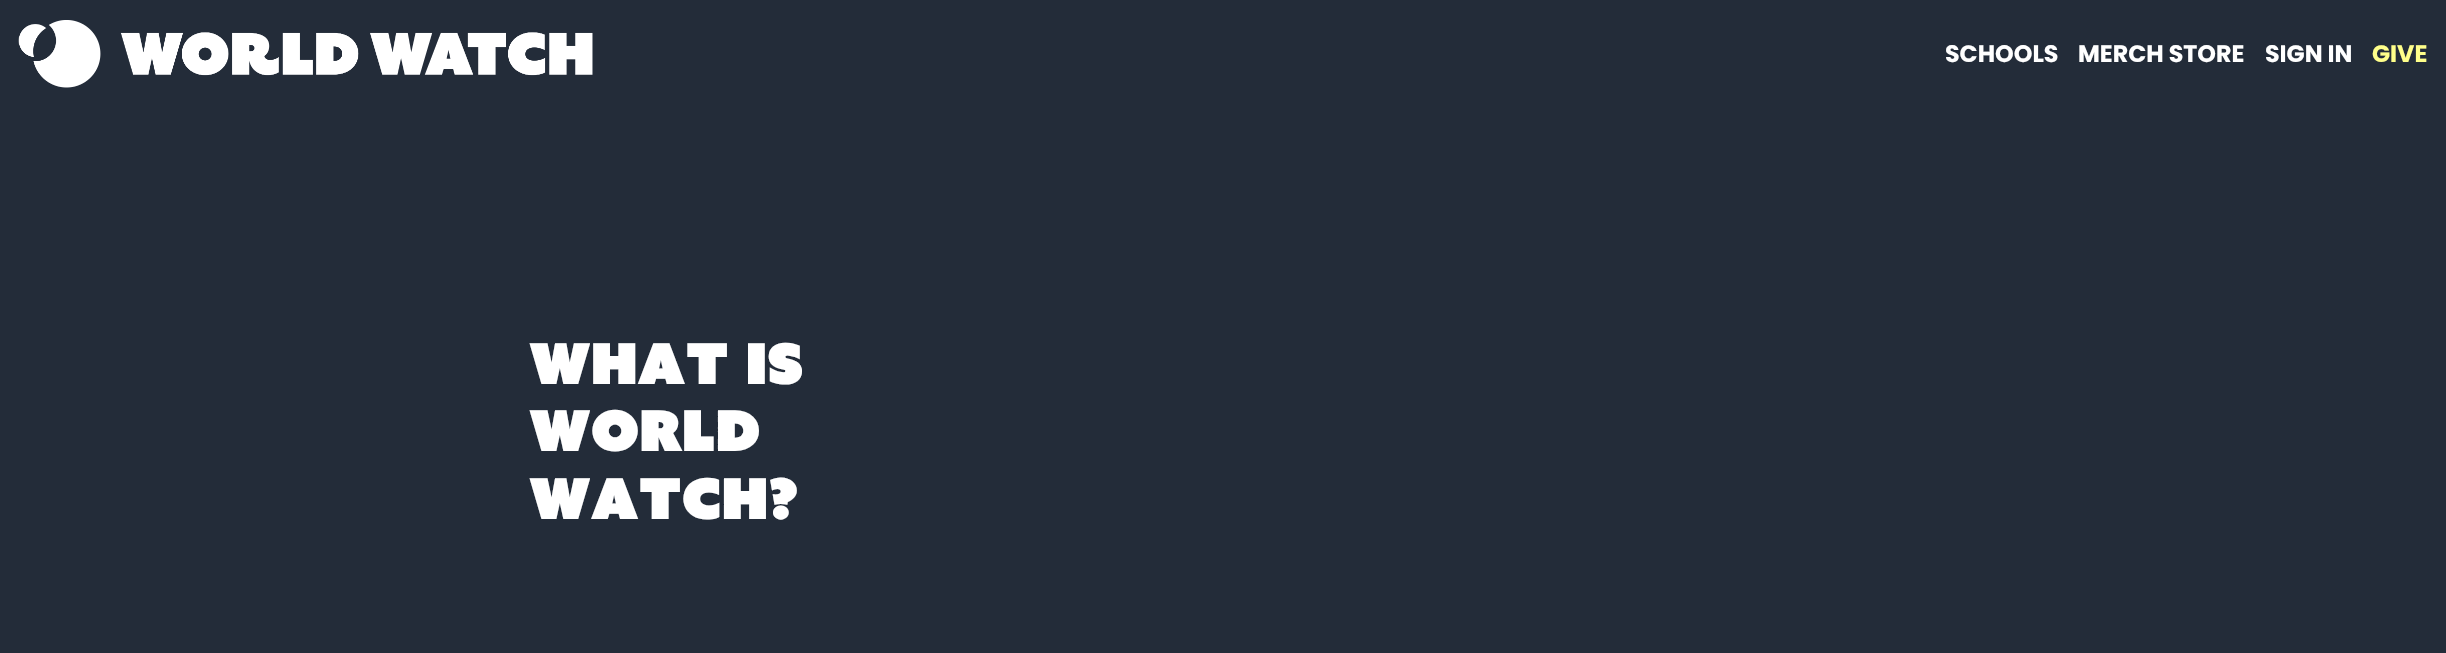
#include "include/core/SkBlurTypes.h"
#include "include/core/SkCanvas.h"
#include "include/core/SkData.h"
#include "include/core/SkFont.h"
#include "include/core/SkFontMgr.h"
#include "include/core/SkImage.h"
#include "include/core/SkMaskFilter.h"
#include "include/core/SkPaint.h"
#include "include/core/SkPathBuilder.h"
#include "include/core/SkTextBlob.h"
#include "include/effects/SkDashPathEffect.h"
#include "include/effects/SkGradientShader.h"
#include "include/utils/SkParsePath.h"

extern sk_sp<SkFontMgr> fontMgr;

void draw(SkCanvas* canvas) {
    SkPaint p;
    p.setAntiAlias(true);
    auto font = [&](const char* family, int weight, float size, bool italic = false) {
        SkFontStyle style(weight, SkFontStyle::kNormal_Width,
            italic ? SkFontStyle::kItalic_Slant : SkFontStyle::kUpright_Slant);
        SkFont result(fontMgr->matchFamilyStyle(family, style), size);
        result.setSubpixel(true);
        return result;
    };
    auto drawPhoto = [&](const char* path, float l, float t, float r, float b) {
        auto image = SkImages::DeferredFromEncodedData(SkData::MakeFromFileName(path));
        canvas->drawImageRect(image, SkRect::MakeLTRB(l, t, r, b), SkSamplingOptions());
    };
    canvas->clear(0xFF232C39);
    drawPhoto("media/1.png", 18, 20, 593, 88);
    auto font1 = font("Poppins", 700, 23.75f);
    p.setColor(0xFFFFFFFF);
    {
        const struct { const char* s; float x, y; } items[] = {
            {"SCHOOLS", 1945, 62},
            {"MERCH STORE", 2078, 62},
            {"SIGN IN", 2265, 62},
        };
        for (auto [s, x, y] : items) {
            canvas->drawString(s, x, y, font1, p);
        }
    }
    p.setColor(0xFFFFFF8A);
    canvas->drawString("GIVE", 2372, 62, font1, p);
    auto font2 = font("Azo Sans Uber", 400, 56.25f);
    p.setColor(0xFFFFFFFF);
    {
        const struct { const char* s; float x, y; } items[] = {
            {"WHAT IS", 529, 384},
            {"WORLD", 529, 451},
            {"WATCH?", 529, 519},
        };
        for (auto [s, x, y] : items) {
            canvas->drawString(s, x, y, font2, p);
        }
    }
}
